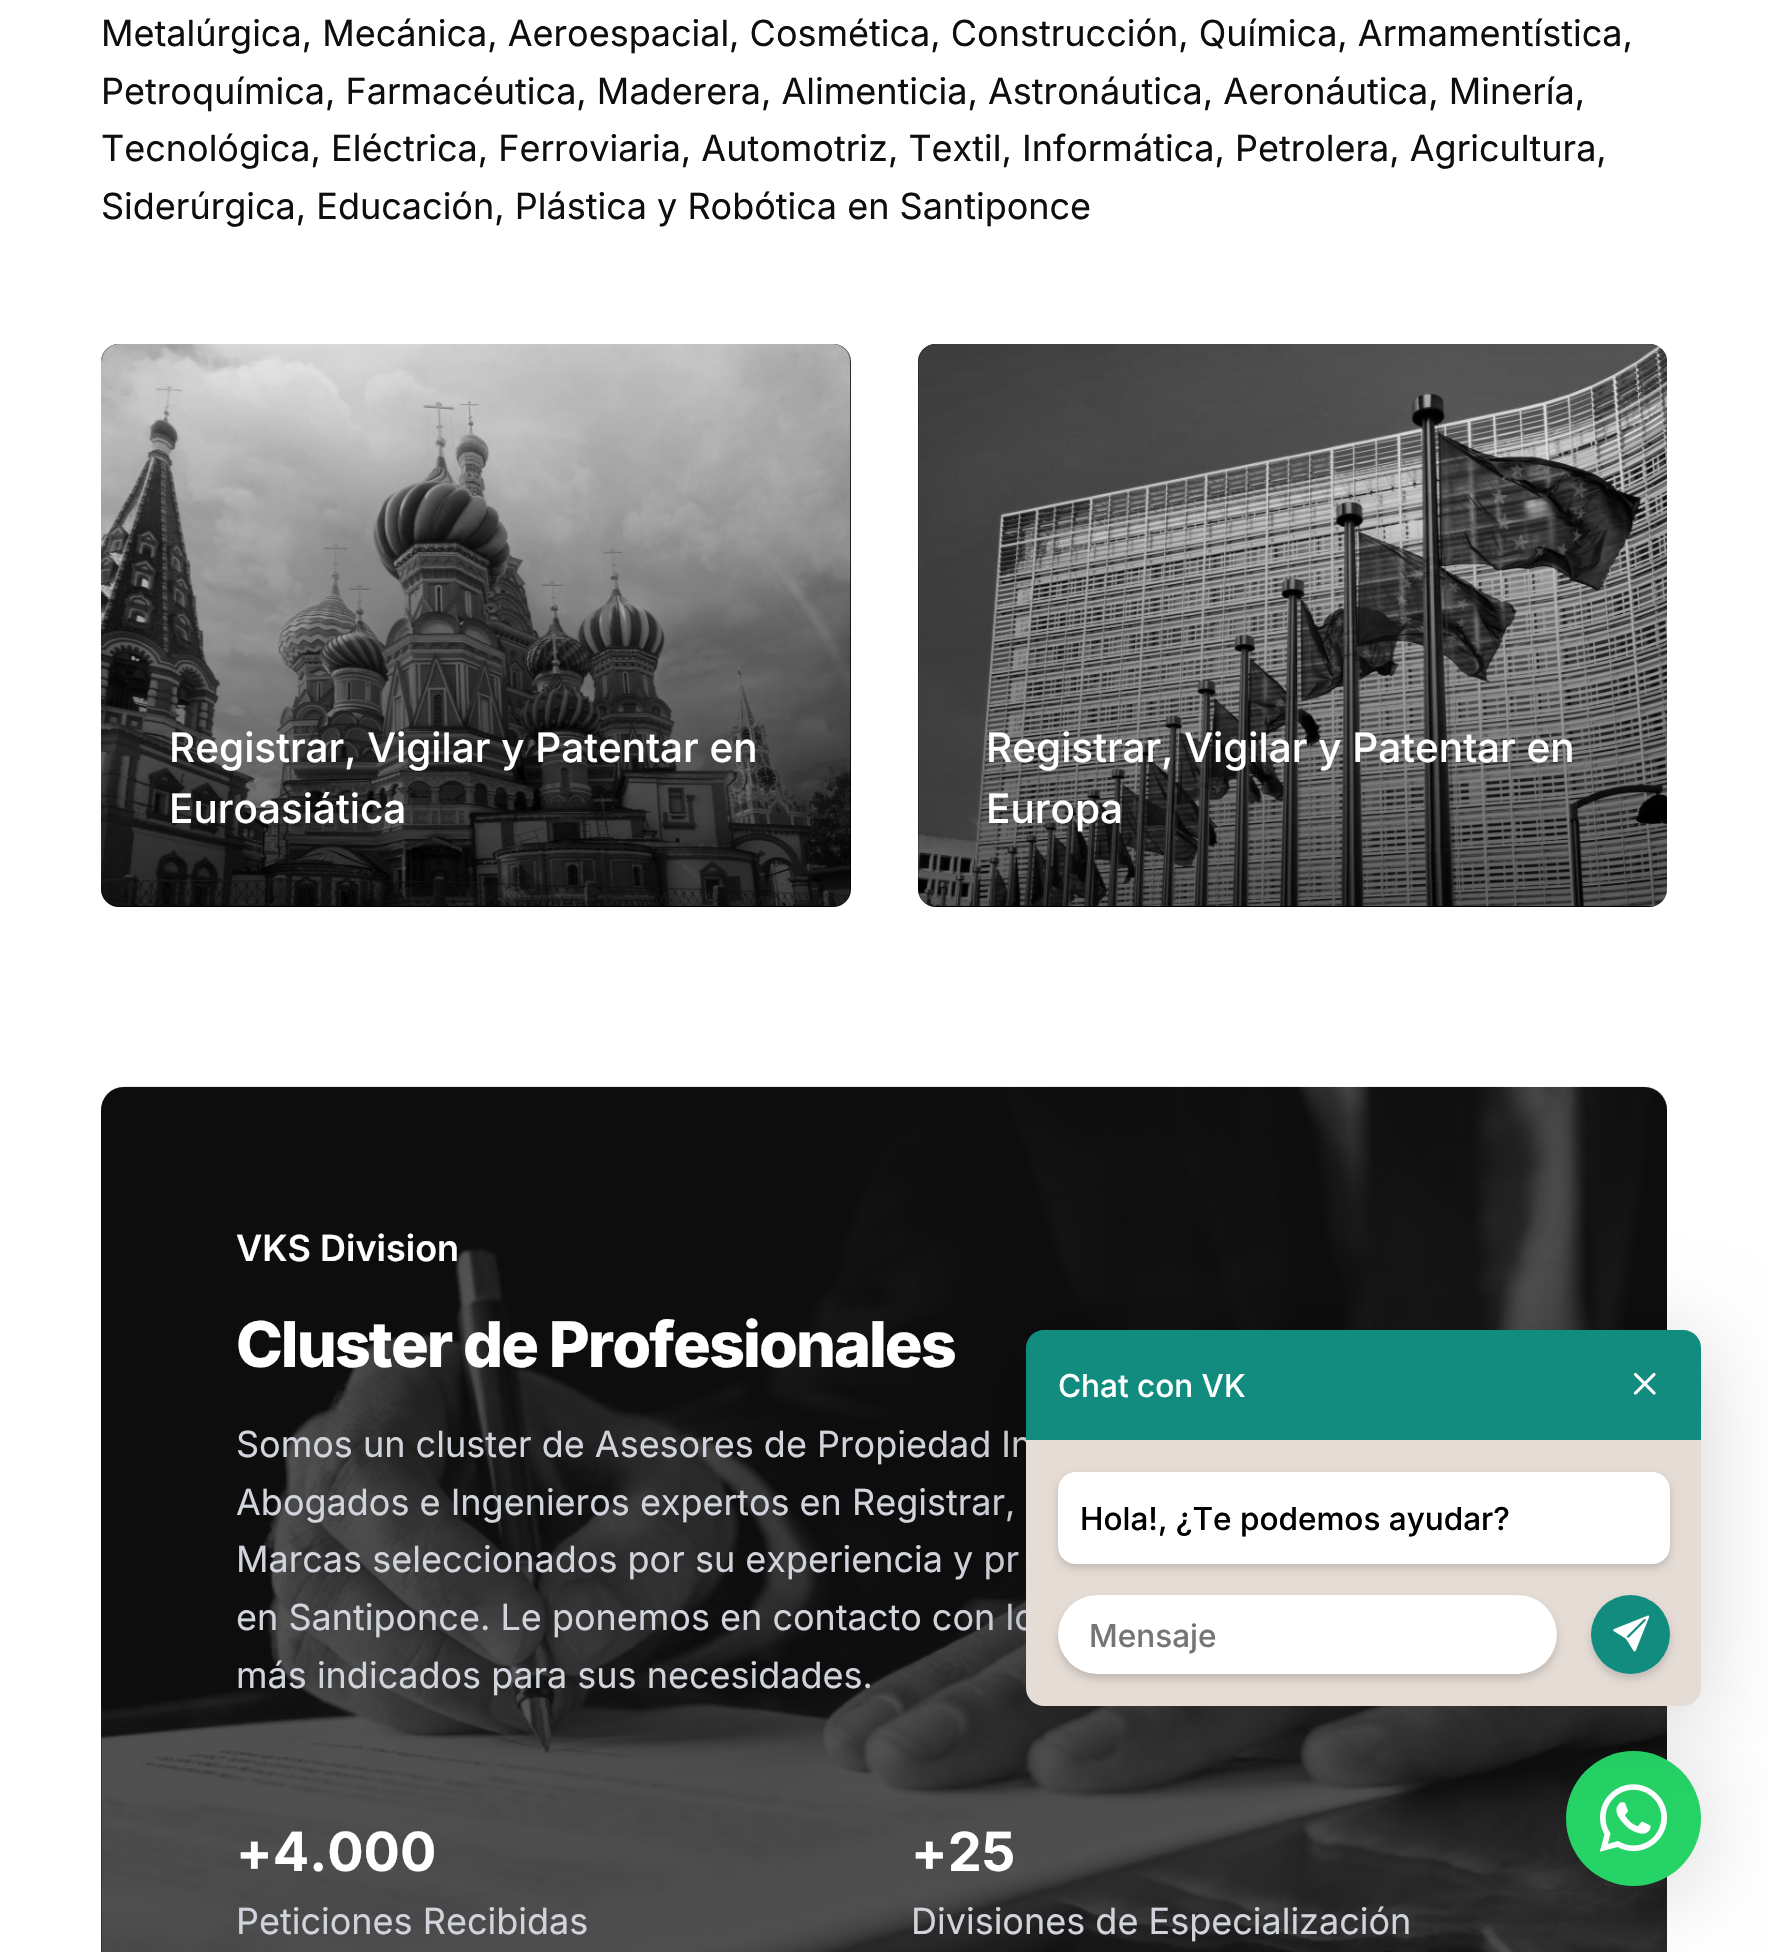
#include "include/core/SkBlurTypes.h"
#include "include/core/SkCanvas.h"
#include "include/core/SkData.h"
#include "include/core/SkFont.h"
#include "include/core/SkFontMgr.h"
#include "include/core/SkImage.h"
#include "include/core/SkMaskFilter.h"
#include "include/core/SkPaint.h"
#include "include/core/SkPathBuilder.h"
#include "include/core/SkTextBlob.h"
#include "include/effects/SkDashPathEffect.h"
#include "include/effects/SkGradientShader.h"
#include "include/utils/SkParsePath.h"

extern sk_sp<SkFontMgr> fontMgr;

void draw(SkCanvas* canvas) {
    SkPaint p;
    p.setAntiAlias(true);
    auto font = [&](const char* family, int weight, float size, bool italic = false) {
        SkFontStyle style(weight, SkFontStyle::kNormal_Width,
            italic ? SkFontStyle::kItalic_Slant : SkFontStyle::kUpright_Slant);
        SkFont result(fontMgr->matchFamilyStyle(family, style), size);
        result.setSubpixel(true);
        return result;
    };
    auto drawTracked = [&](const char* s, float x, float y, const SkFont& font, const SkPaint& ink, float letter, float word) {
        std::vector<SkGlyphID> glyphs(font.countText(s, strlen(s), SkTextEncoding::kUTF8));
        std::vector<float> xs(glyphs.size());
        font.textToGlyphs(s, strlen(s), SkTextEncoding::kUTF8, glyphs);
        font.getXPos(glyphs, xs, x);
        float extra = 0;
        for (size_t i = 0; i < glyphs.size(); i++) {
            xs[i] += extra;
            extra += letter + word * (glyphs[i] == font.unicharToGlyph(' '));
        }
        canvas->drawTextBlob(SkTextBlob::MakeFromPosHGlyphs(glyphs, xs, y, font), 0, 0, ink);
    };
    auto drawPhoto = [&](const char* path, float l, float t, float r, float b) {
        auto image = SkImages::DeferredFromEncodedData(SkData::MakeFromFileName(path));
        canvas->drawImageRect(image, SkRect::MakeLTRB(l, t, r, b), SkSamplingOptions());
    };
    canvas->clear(0xFFFFFFFF);
    auto font1 = font("Inter", 400, 36);
    p.setColor(0xFF0E0E0E);
    {
        const struct { const char* s; float x, y; } items[] = {
            {"Metalúrgica, Mecánica, Aeroespacial, Cosmética, Construcción, Química, Armamentística,", 101, 46},
            {"Petroquímica, Farmacéutica, Maderera, Alimenticia, Astronáutica, Aeronáutica, Minería,", 101, 104},
            {"Tecnológica, Eléctrica, Ferroviaria, Automotriz, Textil, Informática, Petrolera, Agricultura,", 101, 161},
            {"Siderúrgica, Educación, Plástica y Robótica en Santiponce", 101, 219},
        };
        for (auto [s, x, y] : items) {
            canvas->drawString(s, x, y, font1, p);
        }
    }
    p.setColor(0xFF000000);
    canvas->drawRoundRect(SkRect::MakeLTRB(101, 344, 851, 907), 18, 18, p);
    drawPhoto("media/1.png", 101, 344, 851, 906);
    auto font2 = font("Inter", 500, 40.5f);
    p.setColor(0xFFFFFFFF);
    canvas->drawString("Registrar, Vigilar y Patentar en", 169, 762, font2, p);
    canvas->drawString("Euroasiática", 169, 823, font2, p);
    p.setColor(0xFF000000);
    canvas->drawRoundRect(SkRect::MakeLTRB(918, 344, 1667, 907), 18, 18, p);
    drawPhoto("media/2.png", 918, 344, 1667, 907);
    p.setColor(0xFFFFFFFF);
    canvas->drawString("Registrar, Vigilar y Patentar en", 986, 762, font2, p);
    canvas->drawString("Europa", 986, 823, font2, p);
    p.setColor(0xFF0E0E0E);
    canvas->drawRoundRect(SkRect::MakeLTRB(101, 1087, 1667, 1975), 23, 23, p);
    drawPhoto("media/3.png", 101, 1086, 1667, 1952);
    auto font3 = font("Inter", 600, 36);
    p.setColor(0xFFFFFFFF);
    canvas->drawString("VKS Division", 236, 1261, font3, p);
    auto font4 = font("Inter", 800, 63);
    drawTracked("Cluster de Profesionales", 236, 1367, font4, p, -2, 0);
    p.setColor(0xFFD1D5DB);
    {
        const struct { const char* s; float x, y; } items[] = {
            {"Somos un cluster de Asesores de Propiedad In", 236, 1457},
            {"Abogados e Ingenieros expertos en Registrar,", 236, 1515},
            {"Marcas seleccionados por su experiencia y pr", 236, 1572},
            {"en Santiponce. Le ponemos en contacto con lo", 236, 1630},
            {"más indicados para sus necesidades.", 236, 1688},
        };
        for (auto [s, x, y] : items) {
            canvas->drawString(s, x, y, font1, p);
        }
    }
    auto font5 = font("Inter", 700, 54);
    p.setColor(0xFFFFFFFF);
    canvas->drawString("+4.000", 236, 1871, font5, p);
    p.setColor(0xFFD1D5DB);
    canvas->drawString("Peticiones Recibidas", 236, 1934, font1, p);
    p.setColor(0xFFFFFFFF);
    canvas->drawString("+25", 911, 1871, font5, p);
    p.setColor(0xFFD1D5DB);
    canvas->drawString("Divisiones de Especialización", 911, 1934, font1, p);
    p.setColor(0x29000000);
    p.setMaskFilter(SkMaskFilter::MakeBlur(kNormal_SkBlurStyle, 45));
    canvas->drawRoundRect(SkRect::MakeLTRB(1566, 1762, 1701, 1897), 67.5f, 67.5f, p);
    p.setMaskFilter(nullptr);
    p.setColor(0xFF25D366);
    canvas->drawCircle(1633.5f, 1818.5f, 67.5f, p);
    drawPhoto("media/6.png", 1599, 1784, 1667, 1852);
    p.setColor(0x29000000);
    p.setMaskFilter(SkMaskFilter::MakeBlur(kNormal_SkBlurStyle, 45));
    canvas->drawRoundRect(SkRect::MakeLTRB(1026, 1341, 1701, 1717), 18, 18, p);
    p.setMaskFilter(nullptr);
    p.setColor(0xFF128C7E);
    canvas->drawPath(SkPathBuilder().moveTo(1044, 1330).lineTo(1683, 1330).cubicTo(1693, 1330, 1701, 1338, 1701, 1348).lineTo(1701, 1440).lineTo(1026, 1440).lineTo(1026, 1348).cubicTo(1026, 1338, 1034, 1330, 1044, 1330).close().detach(), p);
    auto font6 = font("Inter", 500, 31.5f);
    p.setColor(0xFFFFFFFF);
    canvas->drawString("Chat con VK", 1058, 1397, font6, p);
    drawPhoto("media/4.png", 1633, 1372, 1656, 1395);
    p.setColor(0xFFE5DCD5);
    canvas->drawPath(SkPathBuilder().moveTo(1026, 1440).lineTo(1701, 1440).lineTo(1701, 1688).cubicTo(1701, 1698, 1693, 1706, 1683, 1706).lineTo(1044, 1706).cubicTo(1034, 1706, 1026, 1698, 1026, 1688).close().detach(), p);
    p.setColor(0x29000000);
    p.setMaskFilter(SkMaskFilter::MakeBlur(kNormal_SkBlurStyle, 4.5f));
    canvas->drawRoundRect(SkRect::MakeLTRB(1058, 1476, 1670, 1568), 18, 18, p);
    p.setMaskFilter(nullptr);
    p.setColor(0xFFFFFFFF);
    canvas->drawRoundRect(SkRect::MakeLTRB(1058, 1472, 1670, 1564), 18, 18, p);
    p.setColor(0xFF000000);
    canvas->drawString("Hola!, ¿Te podemos ayudar?", 1080, 1530, font6, p);
    p.setColor(0x29000000);
    p.setMaskFilter(SkMaskFilter::MakeBlur(kNormal_SkBlurStyle, 4.5f));
    canvas->drawRoundRect(SkRect::MakeLTRB(1058, 1600, 1557, 1679), 39.5f, 39.5f, p);
    p.setMaskFilter(nullptr);
    p.setColor(0xFFFFFFFF);
    canvas->drawRoundRect(SkRect::MakeLTRB(1058, 1595, 1557, 1674), 39.5f, 39.5f, p);
    p.setColor(0xFF757575);
    canvas->drawString("Mensaje", 1089, 1647, font6, p);
    p.setColor(0x29000000);
    p.setMaskFilter(SkMaskFilter::MakeBlur(kNormal_SkBlurStyle, 4.5f));
    canvas->drawRoundRect(SkRect::MakeLTRB(1591, 1600, 1670, 1679), 39.5f, 39.5f, p);
    p.setMaskFilter(nullptr);
    p.setColor(0xFF128C7E);
    canvas->drawCircle(1630.5f, 1634.5f, 39.5f, p);
    drawPhoto("media/5.png", 1613, 1615, 1650, 1652);
}
